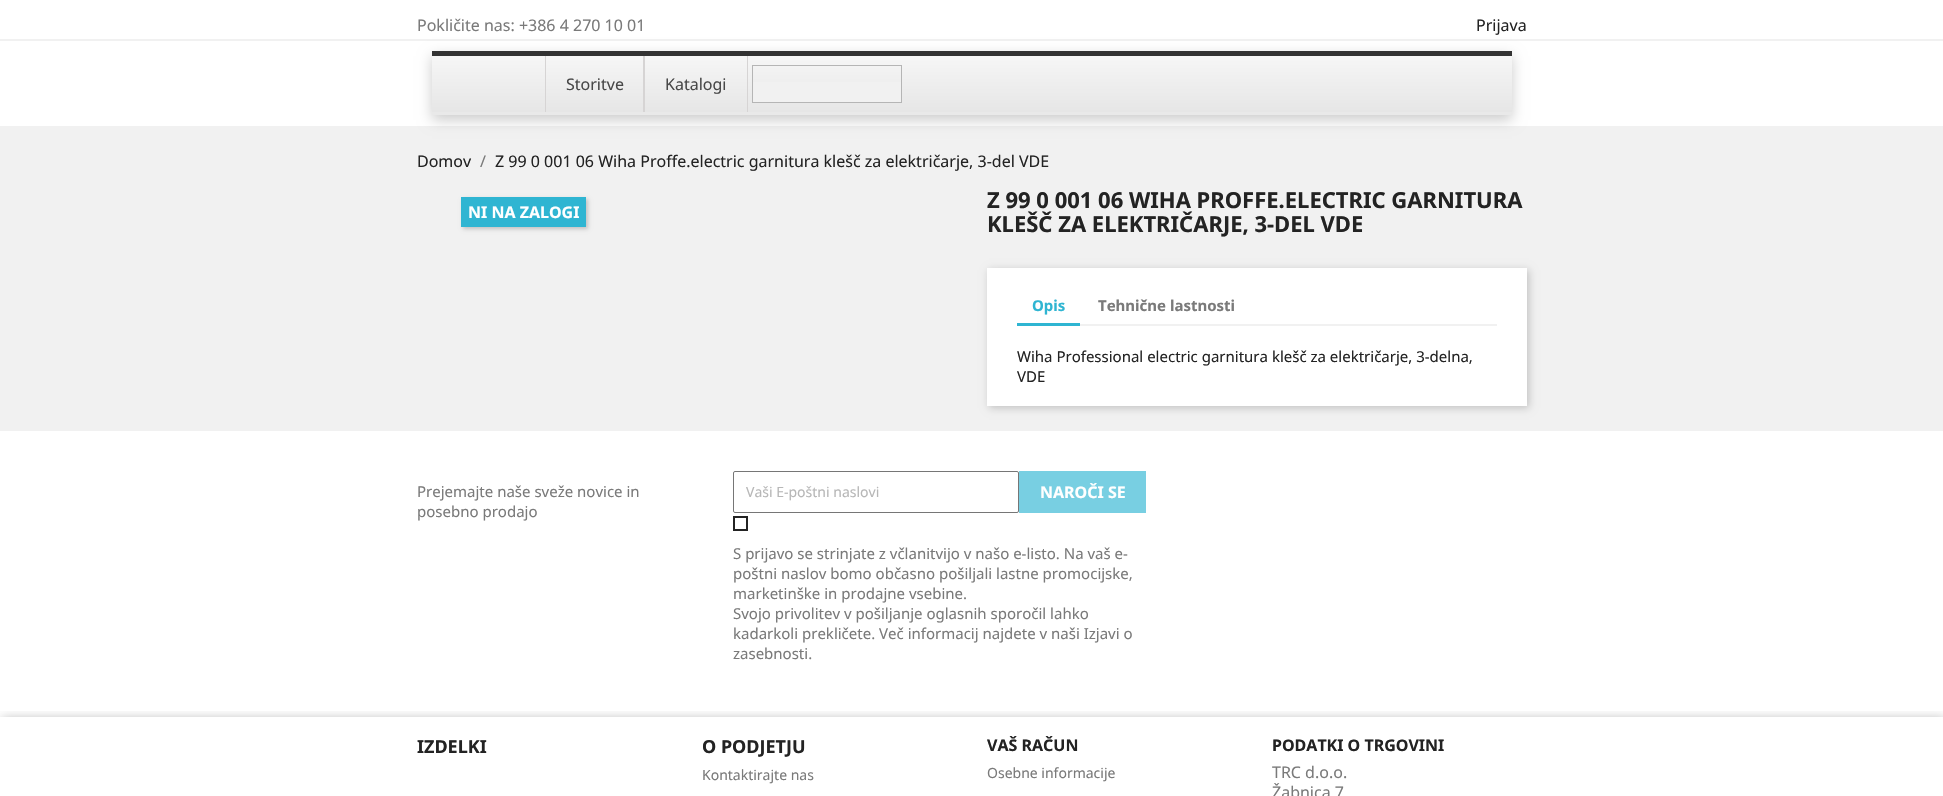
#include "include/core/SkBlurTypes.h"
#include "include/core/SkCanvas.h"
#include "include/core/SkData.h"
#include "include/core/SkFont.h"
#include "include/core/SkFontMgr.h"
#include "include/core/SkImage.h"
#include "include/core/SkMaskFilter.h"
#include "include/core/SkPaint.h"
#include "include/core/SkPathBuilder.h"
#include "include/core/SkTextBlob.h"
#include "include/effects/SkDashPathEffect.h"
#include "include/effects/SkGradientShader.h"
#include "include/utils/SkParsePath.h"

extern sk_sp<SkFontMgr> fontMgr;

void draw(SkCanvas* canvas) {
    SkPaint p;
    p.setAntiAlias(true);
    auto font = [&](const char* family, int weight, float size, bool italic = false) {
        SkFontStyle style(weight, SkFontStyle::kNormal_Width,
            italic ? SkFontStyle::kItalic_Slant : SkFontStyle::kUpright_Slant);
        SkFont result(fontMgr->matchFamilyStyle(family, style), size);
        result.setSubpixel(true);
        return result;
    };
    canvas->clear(0xFFFFFFFF);
    p.setColor(0xFFF1F1F1);
    canvas->drawRect(SkRect::MakeLTRB(0, 39, 1943, 41), p);
    auto font1 = font("Noto Sans", 400, 16);
    p.setColor(0xFF7A7A7A);
    canvas->drawString("Pokličite nas: +386 4 270 10 01", 417, 31, font1, p);
    p.setColor(0xFF232323);
    canvas->drawString("Prijava", 1476, 31, font1, p);
    p.setColor(0xFFF1F1F1);
    canvas->drawRect(SkRect::MakeLTRB(0, 126, 1943, 431), p);
    p.setColor(0x33000000);
    p.setMaskFilter(SkMaskFilter::MakeBlur(kNormal_SkBlurStyle, 6.5f));
    canvas->drawRect(SkRect::MakeLTRB(432, 56, 1512, 120), p);
    p.setMaskFilter(nullptr);
    p.setColor(0xFF333333);
    canvas->drawRect(SkRect::MakeLTRB(432, 51, 1512, 56), p);
    {
        const SkColor colors[] = {0xFFF6F6F6, 0xFFE6E6E6};
        const float stops[] = {0, 1};
        const SkPoint ends[] = {{972, 56}, {972, 112}};
        p.setShader(SkGradientShader::MakeLinear(ends, colors, stops, 2, SkTileMode::kClamp));
        p.setAlpha(255);
    }
    canvas->drawRect(SkRect::MakeLTRB(432, 56, 1512, 112), p);
    p.setShader(nullptr);
    {
        const struct { float l, t, r, b; SkColor color; } items[] = {
            {432, 112, 1512, 115, 0xFFE9E9E9},
            {643, 56, 645, 112, 0xFFD6D4D4},
            {545, 56, 546, 112, 0xFFD6D4D4},
        };
        for (auto [l, t, r, b, color] : items) {
            p.setColor(color);
            canvas->drawRect(SkRect::MakeLTRB(l, t, r, b), p);
        }
    }
    p.setColor(0xFF484848);
    canvas->drawString("Storitve", 566, 90, font1, p);
    p.setColor(0xFFD6D4D4);
    canvas->drawRect(SkRect::MakeLTRB(747, 56, 748, 112), p);
    p.setColor(0xFF484848);
    canvas->drawString("Katalogi", 665, 90, font1, p);
    p.setColor(0xFFF1F1F1);
    canvas->drawRect(SkRect::MakeLTRB(753, 82, 901, 102), p);
    p.setStyle(SkPaint::kStroke_Style);
    p.setStrokeWidth(1);
    p.setColor(0xFFB5B5B5);
    canvas->drawRect(SkRect::MakeLTRB(752.5f, 65.5f, 901.5f, 102.5f), p);
    p.setStyle(SkPaint::kFill_Style);
    p.setColor(0xFF232323);
    canvas->drawString("Domov", 417, 167, font1, p);
    p.setColor(0xFF7A7A7A);
    canvas->drawString("/", 480, 167, font1, p);
    p.setColor(0xFF232323);
    canvas->drawString("Z 99 0 001 06 Wiha Proffe.electric garnitura klešč za električarje, 3-del VDE", 495, 167, font1, p);
    p.setColor(0x33000000);
    p.setMaskFilter(SkMaskFilter::MakeBlur(kNormal_SkBlurStyle, 2));
    canvas->drawRect(SkRect::MakeLTRB(463, 199, 588, 229), p);
    p.setMaskFilter(nullptr);
    p.setColor(0xFF2FB5D2);
    canvas->drawRect(SkRect::MakeLTRB(461, 197, 586, 227), p);
    auto font2 = font("Noto Sans", 700, 16);
    p.setColor(0xFFFFFFFF);
    canvas->drawString("NI NA ZALOGI", 468, 218, font2, p);
    auto font3 = font("Noto Sans", 700, 22);
    p.setColor(0xFF232323);
    canvas->drawString("Z 99 0 001 06 WIHA PROFFE.ELECTRIC GARNITURA", 987, 208, font3, p);
    canvas->drawString("KLEŠČ ZA ELEKTRIČARJE, 3-DEL VDE", 987, 232, font3, p);
    p.setColor(0x33000000);
    p.setMaskFilter(SkMaskFilter::MakeBlur(kNormal_SkBlurStyle, 4));
    canvas->drawRect(SkRect::MakeLTRB(989, 270, 1529, 408), p);
    p.setMaskFilter(nullptr);
    {
        const struct { float l, t, r, b; SkColor color; } items[] = {
            {987, 268, 1527, 406, 0xFFFFFFFF},
            {1080, 324, 1497, 326, 0xFFF1F1F1},
            {1017, 323, 1080, 326, 0xFF2FB5D2},
        };
        for (auto [l, t, r, b, color] : items) {
            p.setColor(color);
            canvas->drawRect(SkRect::MakeLTRB(l, t, r, b), p);
        }
    }
    auto font4 = font("Noto Sans", 700, 15);
    canvas->drawString("Opis", 1032, 311, font4, p);
    p.setColor(0xFF7A7A7A);
    canvas->drawString("Tehnične lastnosti", 1098, 311, font4, p);
    auto font5 = font("Noto Sans", 400, 15);
    p.setColor(0xFF232323);
    canvas->drawString("Wiha Professional electric garnitura klešč za električarje, 3-delna,", 1017, 362, font5, p);
    canvas->drawString("VDE", 1017, 382, font5, p);
    p.setColor(0xFF7A7A7A);
    canvas->drawString("Prejemajte naše sveže novice in", 417, 497, font5, p);
    canvas->drawString("posebno prodajo", 417, 517, font5, p);
    p.setStyle(SkPaint::kStroke_Style);
    p.setColor(0xFF767676);
    canvas->drawRoundRect(SkRect::MakeLTRB(733.5f, 471.5f, 1018.5f, 512.5f), 1.5f, 1.5f, p);
    auto font6 = font("Noto Sans", 400, 14);
    p.setStyle(SkPaint::kFill_Style);
    p.setColor(0xFFB7B7B7);
    canvas->drawString("Vaši E-poštni naslovi", 746, 497, font6, p);
    p.setColor(0xFF78CFE2);
    canvas->drawRect(SkRect::MakeLTRB(1019, 471, 1146, 513), p);
    p.setColor(0xFFFFFFFF);
    canvas->drawString("NAROČI SE", 1040, 498, font2, p);
    p.setStyle(SkPaint::kStroke_Style);
    p.setStrokeWidth(2);
    p.setColor(0xFF232323);
    canvas->drawRect(SkRect::MakeLTRB(734, 517, 747, 530), p);
    p.setStyle(SkPaint::kFill_Style);
    p.setColor(0xFF7A7A7A);
    {
        const struct { const char* s; float x, y; } items[] = {
            {"S prijavo se strinjate z včlanitvijo v našo e-listo. Na vaš e-", 733, 559},
            {"poštni naslov bomo občasno pošiljali lastne promocijske,", 733, 579},
            {"marketinške in prodajne vsebine.", 733, 599},
            {"Svojo privolitev v pošiljanje oglasnih sporočil lahko", 733, 619},
            {"kadarkoli prekličete. Več informacij najdete v naši Izjavi o", 733, 639},
            {"zasebnosti.", 733, 659},
        };
        for (auto [s, x, y] : items) {
            canvas->drawString(s, x, y, font5, p);
        }
    }
    canvas->save();
    canvas->clipRect(SkRect::MakeLTRB(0, 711, 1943, 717));
    p.setColor(0x4D000000);
    p.setMaskFilter(SkMaskFilter::MakeBlur(kNormal_SkBlurStyle, 5.5f));
    canvas->drawRect(SkRect::MakeLTRB(2, 719, 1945, 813), p);
    p.setMaskFilter(nullptr);
    canvas->restore();
    auto font7 = font("Noto Sans", 700, 18);
    p.setColor(0xFF232323);
    canvas->drawString("IZDELKI", 417, 753, font7, p);
    canvas->drawString("O PODJETJU", 702, 753, font7, p);
    p.setColor(0xFF7A7A7A);
    canvas->drawString("Kontaktirajte nas", 702, 780, font6, p);
    p.setColor(0xFF232323);
    canvas->drawString("VAŠ RAČUN", 987, 751, font2, p);
    p.setColor(0xFF7A7A7A);
    canvas->drawString("Osebne informacije", 987, 778, font6, p);
    p.setColor(0xFF232323);
    canvas->drawString("PODATKI O TRGOVINI", 1272, 751, font2, p);
    p.setColor(0xFF7A7A7A);
    canvas->drawString("TRC d.o.o.", 1272, 778, font1, p);
    canvas->drawString("Žabnica 7", 1272, 798, font1, p);
}
